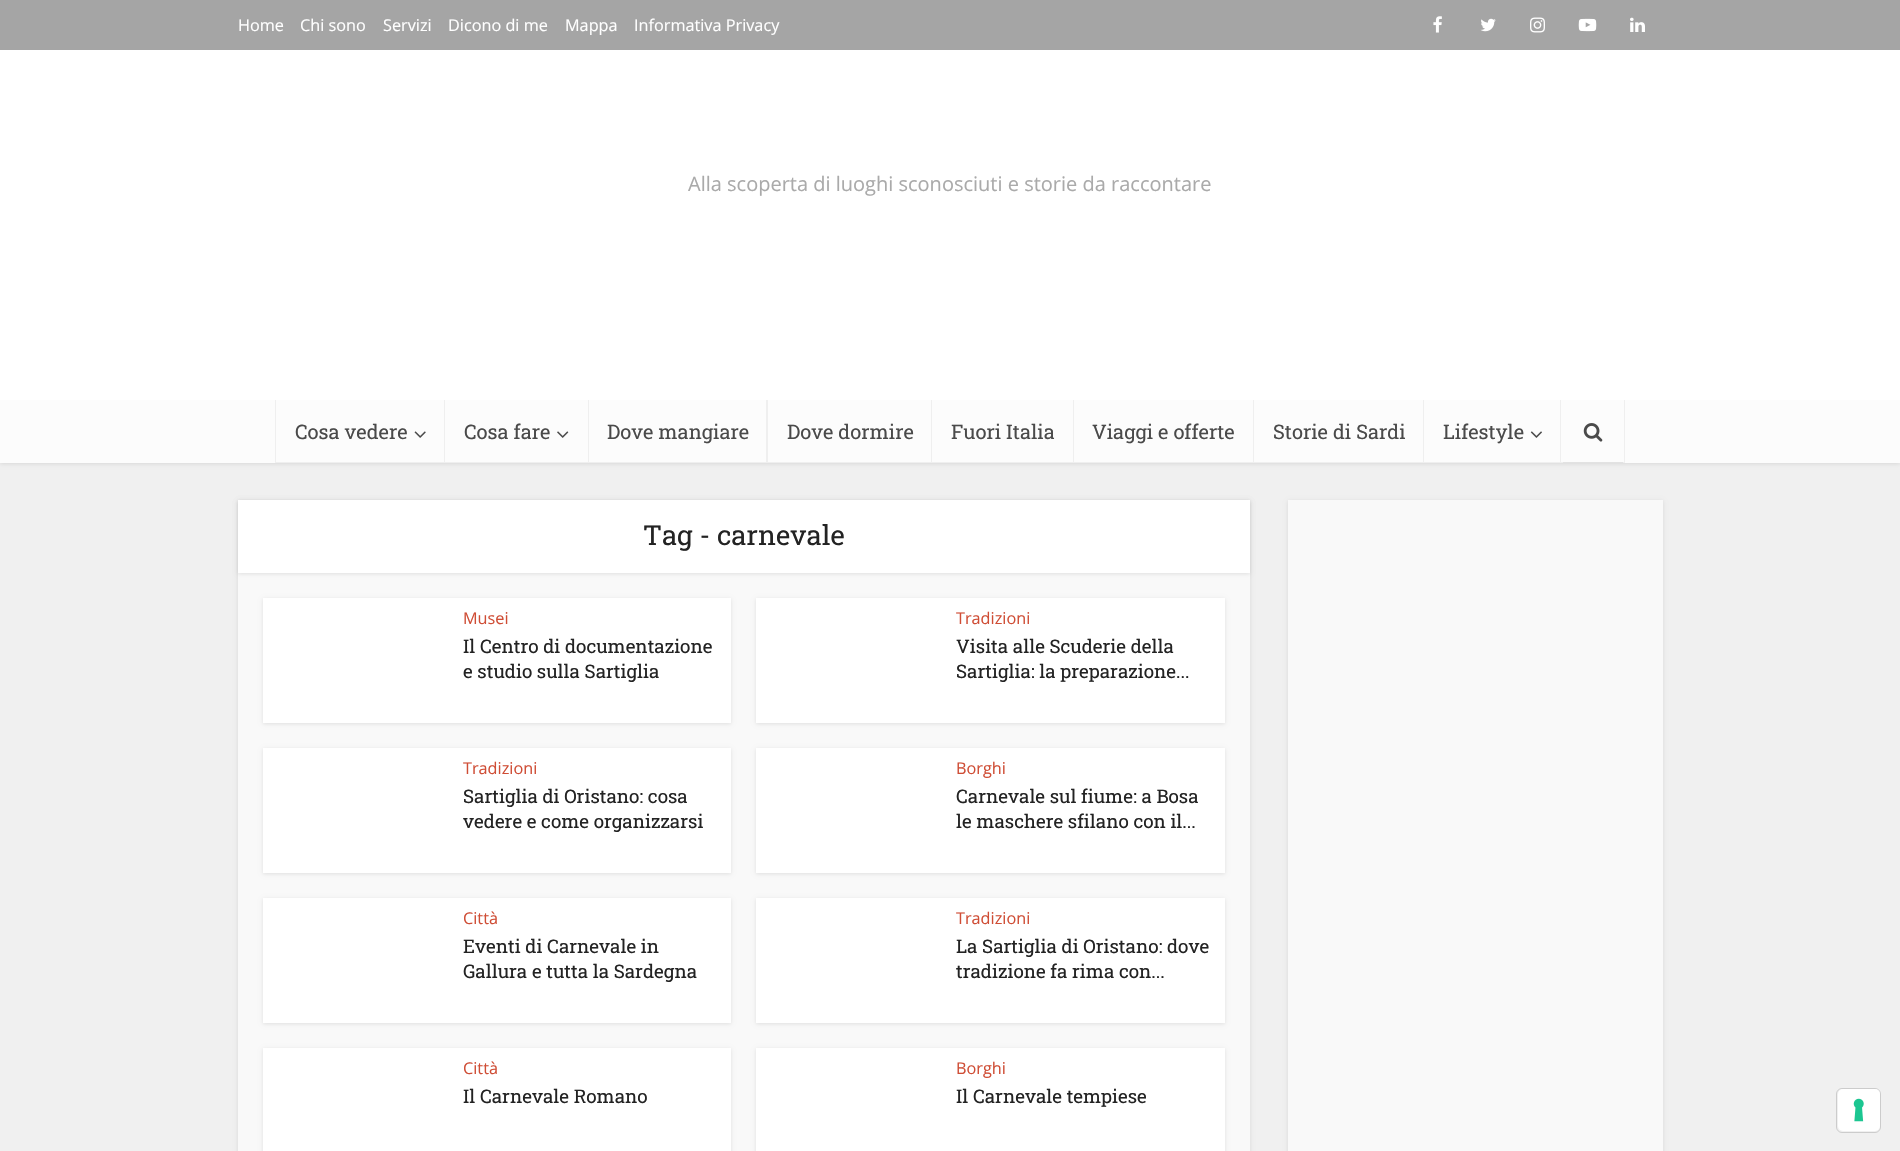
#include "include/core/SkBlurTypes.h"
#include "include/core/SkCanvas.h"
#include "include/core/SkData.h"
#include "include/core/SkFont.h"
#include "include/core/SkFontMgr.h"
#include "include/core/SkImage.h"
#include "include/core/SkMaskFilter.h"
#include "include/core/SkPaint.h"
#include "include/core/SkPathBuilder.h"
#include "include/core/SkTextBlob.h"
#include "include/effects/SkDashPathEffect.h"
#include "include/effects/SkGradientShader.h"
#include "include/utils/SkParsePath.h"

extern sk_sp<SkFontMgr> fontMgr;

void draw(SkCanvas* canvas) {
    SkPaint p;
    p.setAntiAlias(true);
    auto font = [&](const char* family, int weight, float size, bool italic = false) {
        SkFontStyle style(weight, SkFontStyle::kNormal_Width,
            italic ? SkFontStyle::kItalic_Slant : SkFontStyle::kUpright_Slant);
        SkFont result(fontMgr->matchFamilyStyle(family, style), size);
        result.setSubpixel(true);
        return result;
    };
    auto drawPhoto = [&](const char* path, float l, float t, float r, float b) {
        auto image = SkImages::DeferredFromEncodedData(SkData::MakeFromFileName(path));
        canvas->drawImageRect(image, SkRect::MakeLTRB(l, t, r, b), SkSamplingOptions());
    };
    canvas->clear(0xFFF0F0F0);
    p.setColor(0x1A000000);
    p.setMaskFilter(SkMaskFilter::MakeBlur(kNormal_SkBlurStyle, 2));
    canvas->drawRect(SkRect::MakeLTRB(0, 1, 1900, 464), p);
    p.setMaskFilter(nullptr);
    p.setColor(0xFFFFFFFF);
    canvas->drawRect(SkRect::MakeLTRB(0, 50, 1900, 400), p);
    p.setColor(0xFFA5A5A5);
    canvas->drawRect(SkRect::MakeLTRB(0, 0, 1900, 50), p);
    auto font1 = font("Open Sans", 400, 16.25f);
    p.setColor(0xFFFFFFFF);
    {
        const struct { const char* s; float x, y; } items[] = {
            {"Home", 238, 31},
            {"Chi sono", 300, 31},
            {"Servizi", 383, 31},
            {"Dicono di me", 448, 31},
            {"Mappa", 565, 31},
            {"Informativa Privacy", 634, 31},
        };
        for (auto [s, x, y] : items) {
            canvas->drawString(s, x, y, font1, p);
        }
    }
    drawPhoto("media/1.png", 1433, 16, 1442, 33);
    drawPhoto("media/2.png", 1480, 18, 1496, 32);
    drawPhoto("media/3.png", 1530, 17, 1545, 33);
    drawPhoto("media/4.png", 1578, 18, 1597, 32);
    drawPhoto("media/5.png", 1630, 17, 1645, 32);
    auto font2 = font("Open Sans", 400, 20);
    p.setColor(0xFFAAAAAA);
    canvas->drawString("Alla scoperta di luoghi sconosciuti e storie da raccontare", 688, 191, font2, p);
    p.setColor(0xFFFCFCFC);
    canvas->drawRect(SkRect::MakeLTRB(0, 400, 1900, 463), p);
    p.setColor(0xFFEFEFEF);
    canvas->drawPath(SkPathBuilder().moveTo(275, 400).lineTo(275, 463).lineTo(444, 463).lineTo(444, 462).lineTo(276, 462).lineTo(276, 400).close().detach(), p);
    auto font3 = font("Roboto Slab", 400, 20);
    p.setColor(0xFF4A4A4A);
    canvas->drawString("Cosa vedere", 295, 439, font3, p);
    drawPhoto("media/6.png", 414, 431, 426, 438);
    p.setColor(0xFFEFEFEF);
    canvas->drawPath(SkPathBuilder().moveTo(444, 400).lineTo(444, 463).lineTo(588, 463).lineTo(588, 462).lineTo(445, 462).lineTo(445, 400).close().detach(), p);
    p.setColor(0xFF4A4A4A);
    canvas->drawString("Cosa fare", 464, 439, font3, p);
    drawPhoto("media/7.png", 557, 431, 569, 438);
    p.setColor(0xFFEFEFEF);
    canvas->drawPath(SkPathBuilder().moveTo(588, 400).lineTo(588, 463).lineTo(766, 463).lineTo(766, 462).lineTo(589, 462).lineTo(589, 400).close().detach(), p);
    p.setColor(0xFF4A4A4A);
    canvas->drawString("Dove mangiare", 607, 439, font3, p);
    p.setColor(0xFFEFEFEF);
    canvas->drawPath(SkPathBuilder().moveTo(766, 400).lineTo(766, 463).lineTo(931, 463).lineTo(931, 462).lineTo(768, 462).lineTo(768, 400).close().detach(), p);
    p.setColor(0xFF4A4A4A);
    canvas->drawString("Dove dormire", 787, 439, font3, p);
    p.setColor(0xFFEFEFEF);
    canvas->drawPath(SkPathBuilder().moveTo(931, 400).lineTo(931, 463).lineTo(1073, 463).lineTo(1073, 462).lineTo(932, 462).lineTo(932, 400).close().detach(), p);
    p.setColor(0xFF4A4A4A);
    canvas->drawString("Fuori Italia", 951, 439, font3, p);
    p.setColor(0xFFEFEFEF);
    canvas->drawPath(SkPathBuilder().moveTo(1073, 400).lineTo(1073, 463).lineTo(1253, 463).lineTo(1253, 462).lineTo(1074, 462).lineTo(1074, 400).close().detach(), p);
    p.setColor(0xFF4A4A4A);
    canvas->drawString("Viaggi e offerte", 1092, 439, font3, p);
    p.setColor(0xFFEFEFEF);
    canvas->drawPath(SkPathBuilder().moveTo(1253, 400).lineTo(1253, 463).lineTo(1423, 463).lineTo(1423, 462).lineTo(1254, 462).lineTo(1254, 400).close().detach(), p);
    p.setColor(0xFF4A4A4A);
    canvas->drawString("Storie di Sardi", 1273, 439, font3, p);
    p.setColor(0xFFEFEFEF);
    canvas->drawPath(SkPathBuilder().moveTo(1423, 400).lineTo(1423, 463).lineTo(1560, 463).lineTo(1560, 462).lineTo(1424, 462).lineTo(1424, 400).close().detach(), p);
    p.setColor(0xFF4A4A4A);
    canvas->drawString("Lifestyle", 1443, 439, font3, p);
    drawPhoto("media/8.png", 1530, 431, 1542, 438);
    p.setColor(0xFFEFEFEF);
    canvas->drawPath(SkPathBuilder().moveTo(1563, 462).lineTo(1563, 463).lineTo(1625, 463).lineTo(1625, 400).lineTo(1624, 400).lineTo(1624, 462).close().detach(), p);
    p.setColor(0x0D000000);
    canvas->drawPath(SkPathBuilder().moveTo(1560, 400).lineTo(1560, 463).lineTo(1623, 463).lineTo(1623, 462).lineTo(1561, 462).lineTo(1561, 400).close().detach(), p);
    drawPhoto("media/9.png", 1583, 423, 1603, 442);
    p.setColor(0x1A000000);
    p.setMaskFilter(SkMaskFilter::MakeBlur(kNormal_SkBlurStyle, 2));
    canvas->drawRect(SkRect::MakeLTRB(238, 501, 1250, 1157), p);
    p.setMaskFilter(nullptr);
    p.setColor(0xFFF9F9F9);
    canvas->drawRect(SkRect::MakeLTRB(238, 573, 1250, 1151), p);
    p.setColor(0x1A000000);
    p.setMaskFilter(SkMaskFilter::MakeBlur(kNormal_SkBlurStyle, 2));
    canvas->drawRect(SkRect::MakeLTRB(238, 501, 1250, 574), p);
    p.setMaskFilter(nullptr);
    p.setColor(0xFFFFFFFF);
    canvas->drawRect(SkRect::MakeLTRB(238, 500, 1250, 573), p);
    auto font4 = font("Roboto Slab", 400, 27.5f);
    p.setColor(0xFF232323);
    canvas->drawString("Tag - carnevale", 643, 545, font4, p);
    p.setColor(0x1A000000);
    p.setMaskFilter(SkMaskFilter::MakeBlur(kNormal_SkBlurStyle, 2));
    canvas->drawRect(SkRect::MakeLTRB(263, 599, 731, 724), p);
    p.setMaskFilter(nullptr);
    p.setColor(0xFFFFFFFF);
    canvas->drawRect(SkRect::MakeLTRB(263, 598, 731, 723), p);
    p.setColor(0xFFCF4D35);
    canvas->drawString("Musei", 463, 624, font1, p);
    auto font5 = font("Roboto Slab", 400, 18.75f);
    p.setColor(0xFF232323);
    canvas->drawString("Il Centro di documentazione", 463, 653, font5, p);
    canvas->drawString("e studio sulla Sartiglia", 463, 678, font5, p);
    p.setColor(0x1A000000);
    p.setMaskFilter(SkMaskFilter::MakeBlur(kNormal_SkBlurStyle, 2));
    canvas->drawRect(SkRect::MakeLTRB(756, 599, 1225, 724), p);
    p.setMaskFilter(nullptr);
    p.setColor(0xFFFFFFFF);
    canvas->drawRect(SkRect::MakeLTRB(756, 598, 1225, 723), p);
    p.setColor(0xFFCF4D35);
    canvas->drawString("Tradizioni", 956, 624, font1, p);
    p.setColor(0xFF232323);
    canvas->drawString("Visita alle Scuderie della", 956, 653, font5, p);
    canvas->drawString("Sartiglia: la preparazione...", 956, 678, font5, p);
    p.setColor(0x1A000000);
    p.setMaskFilter(SkMaskFilter::MakeBlur(kNormal_SkBlurStyle, 2));
    canvas->drawRect(SkRect::MakeLTRB(263, 749, 731, 874), p);
    p.setMaskFilter(nullptr);
    p.setColor(0xFFFFFFFF);
    canvas->drawRect(SkRect::MakeLTRB(263, 748, 731, 873), p);
    p.setColor(0xFFCF4D35);
    canvas->drawString("Tradizioni", 463, 774, font1, p);
    p.setColor(0xFF232323);
    canvas->drawString("Sartiglia di Oristano: cosa", 463, 803, font5, p);
    canvas->drawString("vedere e come organizzarsi", 463, 828, font5, p);
    p.setColor(0x1A000000);
    p.setMaskFilter(SkMaskFilter::MakeBlur(kNormal_SkBlurStyle, 2));
    canvas->drawRect(SkRect::MakeLTRB(756, 749, 1225, 874), p);
    p.setMaskFilter(nullptr);
    p.setColor(0xFFFFFFFF);
    canvas->drawRect(SkRect::MakeLTRB(756, 748, 1225, 873), p);
    p.setColor(0xFFCF4D35);
    canvas->drawString("Borghi", 956, 774, font1, p);
    p.setColor(0xFF232323);
    canvas->drawString("Carnevale sul fiume: a Bosa", 956, 803, font5, p);
    canvas->drawString("le maschere sfilano con il...", 956, 828, font5, p);
    p.setColor(0x1A000000);
    p.setMaskFilter(SkMaskFilter::MakeBlur(kNormal_SkBlurStyle, 2));
    canvas->drawRect(SkRect::MakeLTRB(263, 899, 731, 1024), p);
    p.setMaskFilter(nullptr);
    p.setColor(0xFFFFFFFF);
    canvas->drawRect(SkRect::MakeLTRB(263, 898, 731, 1023), p);
    p.setColor(0xFFCF4D35);
    canvas->drawString("Città", 463, 924, font1, p);
    p.setColor(0xFF232323);
    canvas->drawString("Eventi di Carnevale in", 463, 953, font5, p);
    canvas->drawString("Gallura e tutta la Sardegna", 463, 978, font5, p);
    p.setColor(0x1A000000);
    p.setMaskFilter(SkMaskFilter::MakeBlur(kNormal_SkBlurStyle, 2));
    canvas->drawRect(SkRect::MakeLTRB(756, 899, 1225, 1024), p);
    p.setMaskFilter(nullptr);
    p.setColor(0xFFFFFFFF);
    canvas->drawRect(SkRect::MakeLTRB(756, 898, 1225, 1023), p);
    p.setColor(0xFFCF4D35);
    canvas->drawString("Tradizioni", 956, 924, font1, p);
    p.setColor(0xFF232323);
    canvas->drawString("La Sartiglia di Oristano: dove", 956, 953, font5, p);
    canvas->drawString("tradizione fa rima con...", 956, 978, font5, p);
    p.setColor(0x1A000000);
    p.setMaskFilter(SkMaskFilter::MakeBlur(kNormal_SkBlurStyle, 2));
    canvas->drawRect(SkRect::MakeLTRB(263, 1049, 731, 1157), p);
    p.setMaskFilter(nullptr);
    p.setColor(0xFFFFFFFF);
    canvas->drawRect(SkRect::MakeLTRB(263, 1048, 731, 1151), p);
    p.setColor(0xFFCF4D35);
    canvas->drawString("Città", 463, 1074, font1, p);
    p.setColor(0xFF232323);
    canvas->drawString("Il Carnevale Romano", 463, 1103, font5, p);
    p.setColor(0x1A000000);
    p.setMaskFilter(SkMaskFilter::MakeBlur(kNormal_SkBlurStyle, 2));
    canvas->drawRect(SkRect::MakeLTRB(756, 1049, 1225, 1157), p);
    p.setMaskFilter(nullptr);
    p.setColor(0xFFFFFFFF);
    canvas->drawRect(SkRect::MakeLTRB(756, 1048, 1225, 1151), p);
    p.setColor(0xFFCF4D35);
    canvas->drawString("Borghi", 956, 1074, font1, p);
    p.setColor(0xFF232323);
    canvas->drawString("Il Carnevale tempiese", 956, 1103, font5, p);
    p.setColor(0x1A000000);
    p.setMaskFilter(SkMaskFilter::MakeBlur(kNormal_SkBlurStyle, 2));
    canvas->drawRect(SkRect::MakeLTRB(1288, 501, 1663, 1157), p);
    p.setMaskFilter(nullptr);
    p.setColor(0xFFF9F9F9);
    canvas->drawRect(SkRect::MakeLTRB(1288, 500, 1663, 1151), p);
    p.setStyle(SkPaint::kStroke_Style);
    p.setStrokeWidth(1);
    p.setColor(0xFFCCCCCC);
    canvas->drawRoundRect(SkRect::MakeLTRB(1836.5f, 1088.5f, 1880.5f, 1132.5f), 5.5f, 5.5f, p);
    p.setStyle(SkPaint::kFill_Style);
    p.setColor(0xFFFFFFFF);
    canvas->drawRoundRect(SkRect::MakeLTRB(1838, 1089, 1880, 1131), 5, 5, p);
    drawPhoto("media/10.png", 1853, 1098, 1864, 1122);
}
